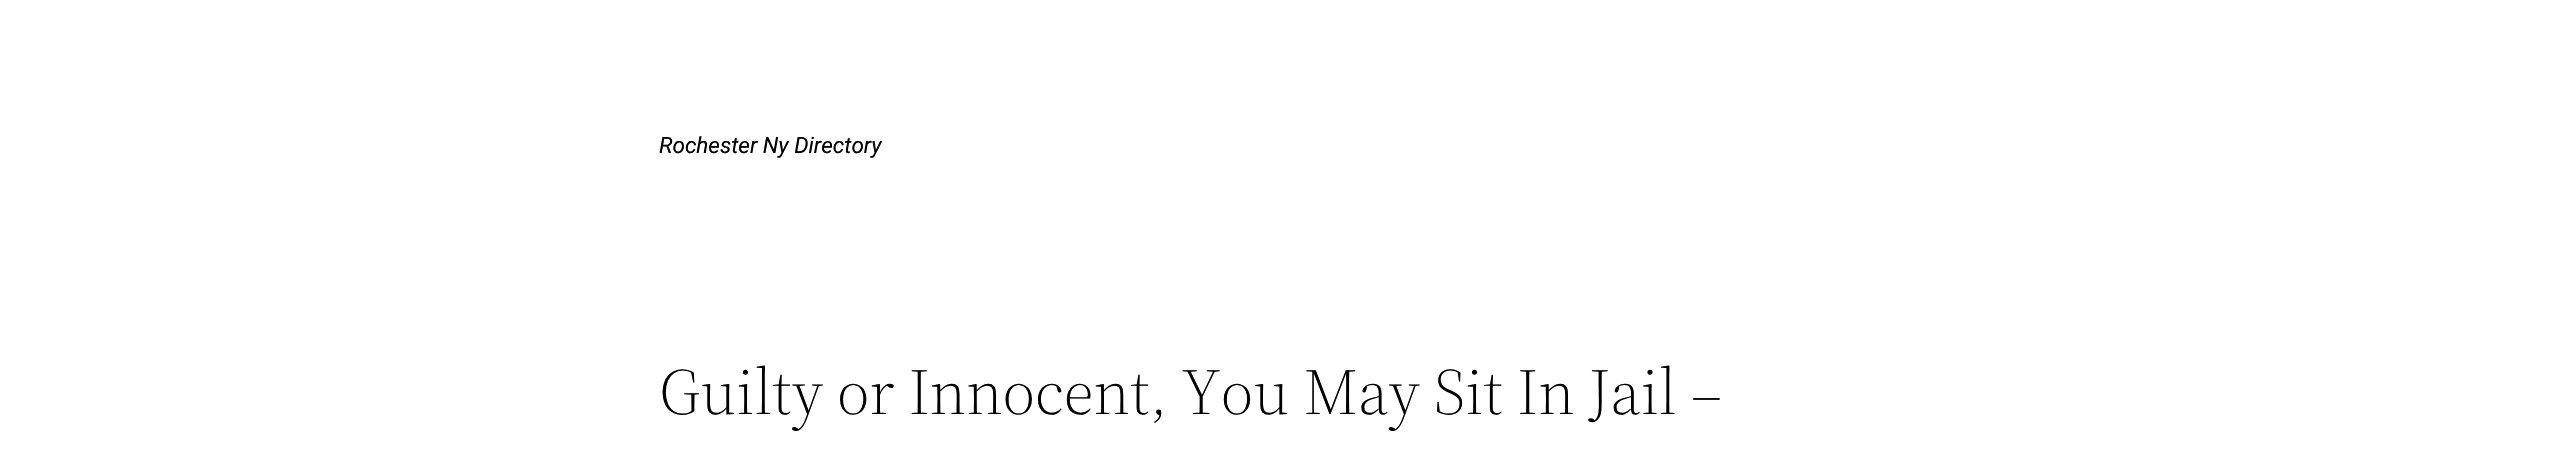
#include "include/core/SkBlurTypes.h"
#include "include/core/SkCanvas.h"
#include "include/core/SkData.h"
#include "include/core/SkFont.h"
#include "include/core/SkFontMgr.h"
#include "include/core/SkImage.h"
#include "include/core/SkMaskFilter.h"
#include "include/core/SkPaint.h"
#include "include/core/SkPathBuilder.h"
#include "include/core/SkTextBlob.h"
#include "include/effects/SkDashPathEffect.h"
#include "include/effects/SkGradientShader.h"
#include "include/utils/SkParsePath.h"

extern sk_sp<SkFontMgr> fontMgr;

void draw(SkCanvas* canvas) {
    SkPaint p;
    p.setAntiAlias(true);
    auto font = [&](const char* family, int weight, float size, bool italic = false) {
        SkFontStyle style(weight, SkFontStyle::kNormal_Width,
            italic ? SkFontStyle::kItalic_Slant : SkFontStyle::kUpright_Slant);
        SkFont result(fontMgr->matchFamilyStyle(family, style), size);
        result.setSubpixel(true);
        return result;
    };
    canvas->clear(0xFFFFFFFF);
    auto font1 = font("Roboto", 400, 22.5f, true);
    p.setColor(0xFF000000);
    canvas->drawString("Rochester Ny Directory", 659, 153, font1, p);
    auto font2 = font("Source Serif 4", 300, 65);
    canvas->drawString("Guilty or Innocent, You May Sit In Jail –", 659, 414, font2, p);
}
